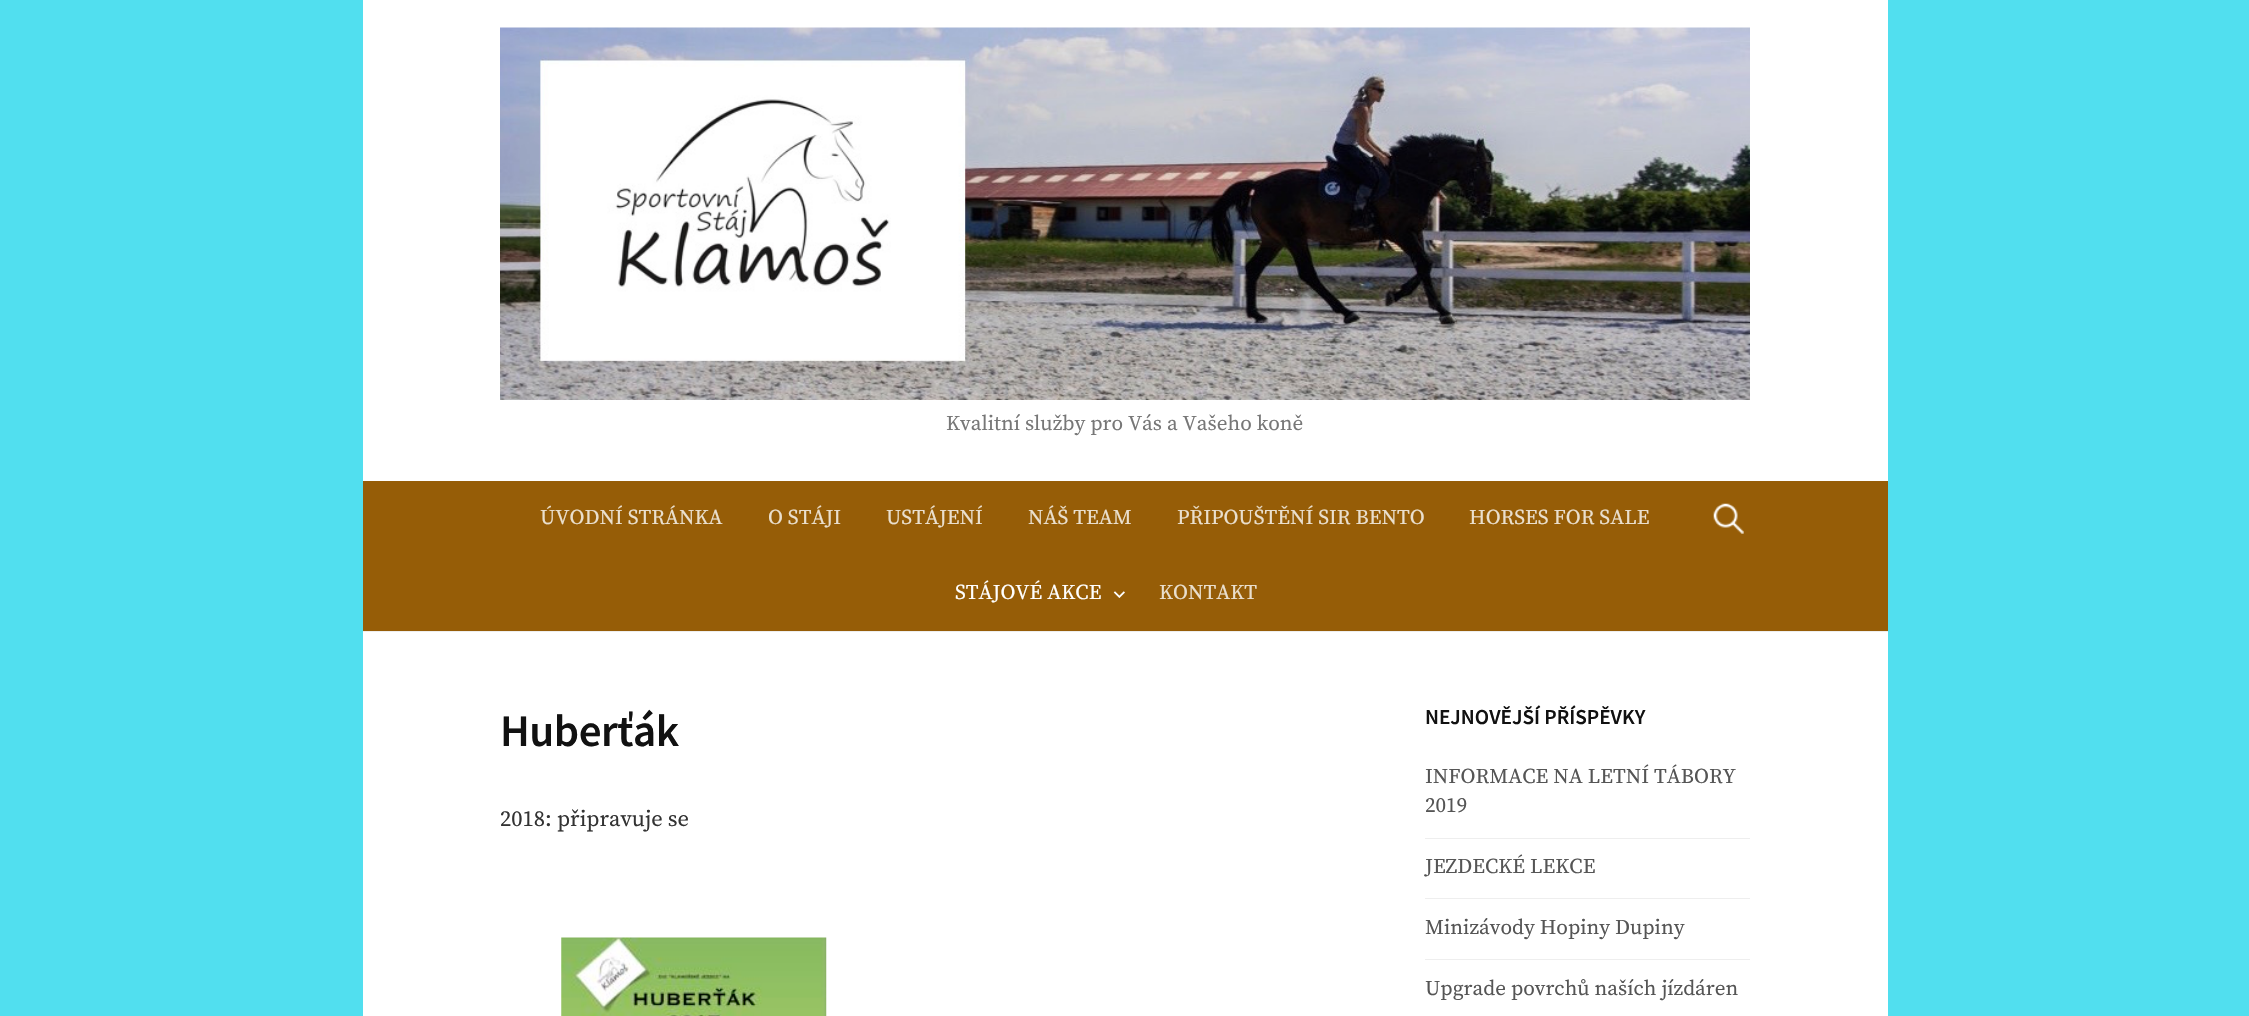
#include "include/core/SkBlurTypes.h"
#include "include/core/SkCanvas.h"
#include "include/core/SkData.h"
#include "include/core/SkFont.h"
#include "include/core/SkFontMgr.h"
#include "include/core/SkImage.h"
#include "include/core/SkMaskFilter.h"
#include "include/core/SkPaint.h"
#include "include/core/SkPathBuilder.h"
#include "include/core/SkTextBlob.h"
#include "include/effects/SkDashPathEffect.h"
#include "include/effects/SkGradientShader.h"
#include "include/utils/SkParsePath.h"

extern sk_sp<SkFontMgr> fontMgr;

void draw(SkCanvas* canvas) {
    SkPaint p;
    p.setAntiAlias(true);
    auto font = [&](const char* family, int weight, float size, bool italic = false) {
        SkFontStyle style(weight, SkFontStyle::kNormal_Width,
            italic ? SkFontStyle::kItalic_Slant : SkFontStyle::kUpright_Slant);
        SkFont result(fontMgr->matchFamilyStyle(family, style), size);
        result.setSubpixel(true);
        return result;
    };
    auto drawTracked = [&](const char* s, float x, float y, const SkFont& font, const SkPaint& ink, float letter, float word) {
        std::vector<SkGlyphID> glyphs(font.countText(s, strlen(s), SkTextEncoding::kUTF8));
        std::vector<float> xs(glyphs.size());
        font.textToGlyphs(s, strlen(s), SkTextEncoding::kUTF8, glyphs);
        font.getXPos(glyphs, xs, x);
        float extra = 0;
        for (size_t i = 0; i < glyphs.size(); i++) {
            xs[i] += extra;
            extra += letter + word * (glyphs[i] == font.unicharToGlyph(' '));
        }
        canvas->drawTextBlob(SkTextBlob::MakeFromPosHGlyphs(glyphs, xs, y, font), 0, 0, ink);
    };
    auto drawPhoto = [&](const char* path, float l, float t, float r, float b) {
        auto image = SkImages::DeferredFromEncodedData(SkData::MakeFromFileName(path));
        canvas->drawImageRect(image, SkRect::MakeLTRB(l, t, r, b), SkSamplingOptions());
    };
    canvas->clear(0xFF51DFEF);
    p.setColor(0xFFFFFFFF);
    canvas->drawRect(SkRect::MakeLTRB(363, 0, 1888, 1016), p);
    p.setColor(0xFFEEEEEE);
    canvas->drawRect(SkRect::MakeLTRB(363, 631, 1888, 632), p);
    drawPhoto("media/1.png", 500, 27, 1750, 400);
    auto font1 = font("Source Serif Pro", 400, 21.1f);
    p.setColor(0xFF777777);
    canvas->drawString("Kvalitní služby pro Vás a Vašeho koně", 946, 430, font1, p);
    p.setColor(0xFF965D07);
    canvas->drawRect(SkRect::MakeLTRB(363, 481, 1888, 631), p);
    p.setColor(0xFFEADFCD);
    {
        const struct { const char* s; float x, y; } items[] = {
            {"ÚVODNÍ STRÁNKA", 540, 524},
            {"O STÁJI", 768, 524},
            {"USTÁJENÍ", 886, 524},
            {"NÁŠ TEAM", 1028, 524},
            {"PŘIPOUŠTĚNÍ SIR BENTO", 1177, 524},
            {"HORSES FOR SALE", 1469, 524},
        };
        for (auto [s, x, y] : items) {
            canvas->drawString(s, x, y, font1, p);
        }
    }
    p.setColor(0xFFFFFFFF);
    canvas->drawString("STÁJOVÉ AKCE", 955, 599, font1, p);
    drawPhoto("media/2.png", 1113, 591, 1125, 598);
    p.setColor(0xFFEADFCD);
    canvas->drawString("KONTAKT", 1159, 599, font1, p);
    drawPhoto("media/3.png", 1713, 503, 1744, 534);
    auto font2 = font("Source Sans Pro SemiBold", 600, 45);
    p.setColor(0xFF111111);
    drawTracked("Huberťák", 500, 746, font2, p, -0.5f, 0);
    auto font3 = font("Source Serif Pro", 400, 22.5f);
    p.setColor(0xFF333333);
    canvas->drawString("2018: připravuje se", 500, 826, font3, p);
    drawPhoto("media/4.png", 561, 937, 827, 1016);
    auto font4 = font("Source Sans Pro SemiBold", 600, 21.25f);
    p.setColor(0xFF111111);
    canvas->drawString("NEJNOVĚJŠÍ PŘÍSPĚVKY", 1425, 724, font4, p);
    p.setColor(0xFF555555);
    canvas->drawString("INFORMACE NA LETNÍ TÁBORY", 1425, 783, font1, p);
    canvas->drawString("2019", 1425, 812, font1, p);
    p.setColor(0xFFEEEEEE);
    canvas->drawRect(SkRect::MakeLTRB(1425, 838, 1750, 839), p);
    p.setColor(0xFF555555);
    canvas->drawString("JEZDECKÉ LEKCE", 1425, 873, font1, p);
    p.setColor(0xFFEEEEEE);
    canvas->drawRect(SkRect::MakeLTRB(1425, 898, 1750, 899), p);
    p.setColor(0xFF555555);
    canvas->drawString("Minizávody Hopiny Dupiny", 1425, 934, font1, p);
    p.setColor(0xFFEEEEEE);
    canvas->drawRect(SkRect::MakeLTRB(1425, 959, 1750, 960), p);
    p.setColor(0xFF555555);
    canvas->drawString("Upgrade povrchů naších jízdáren", 1425, 995, font1, p);
}
